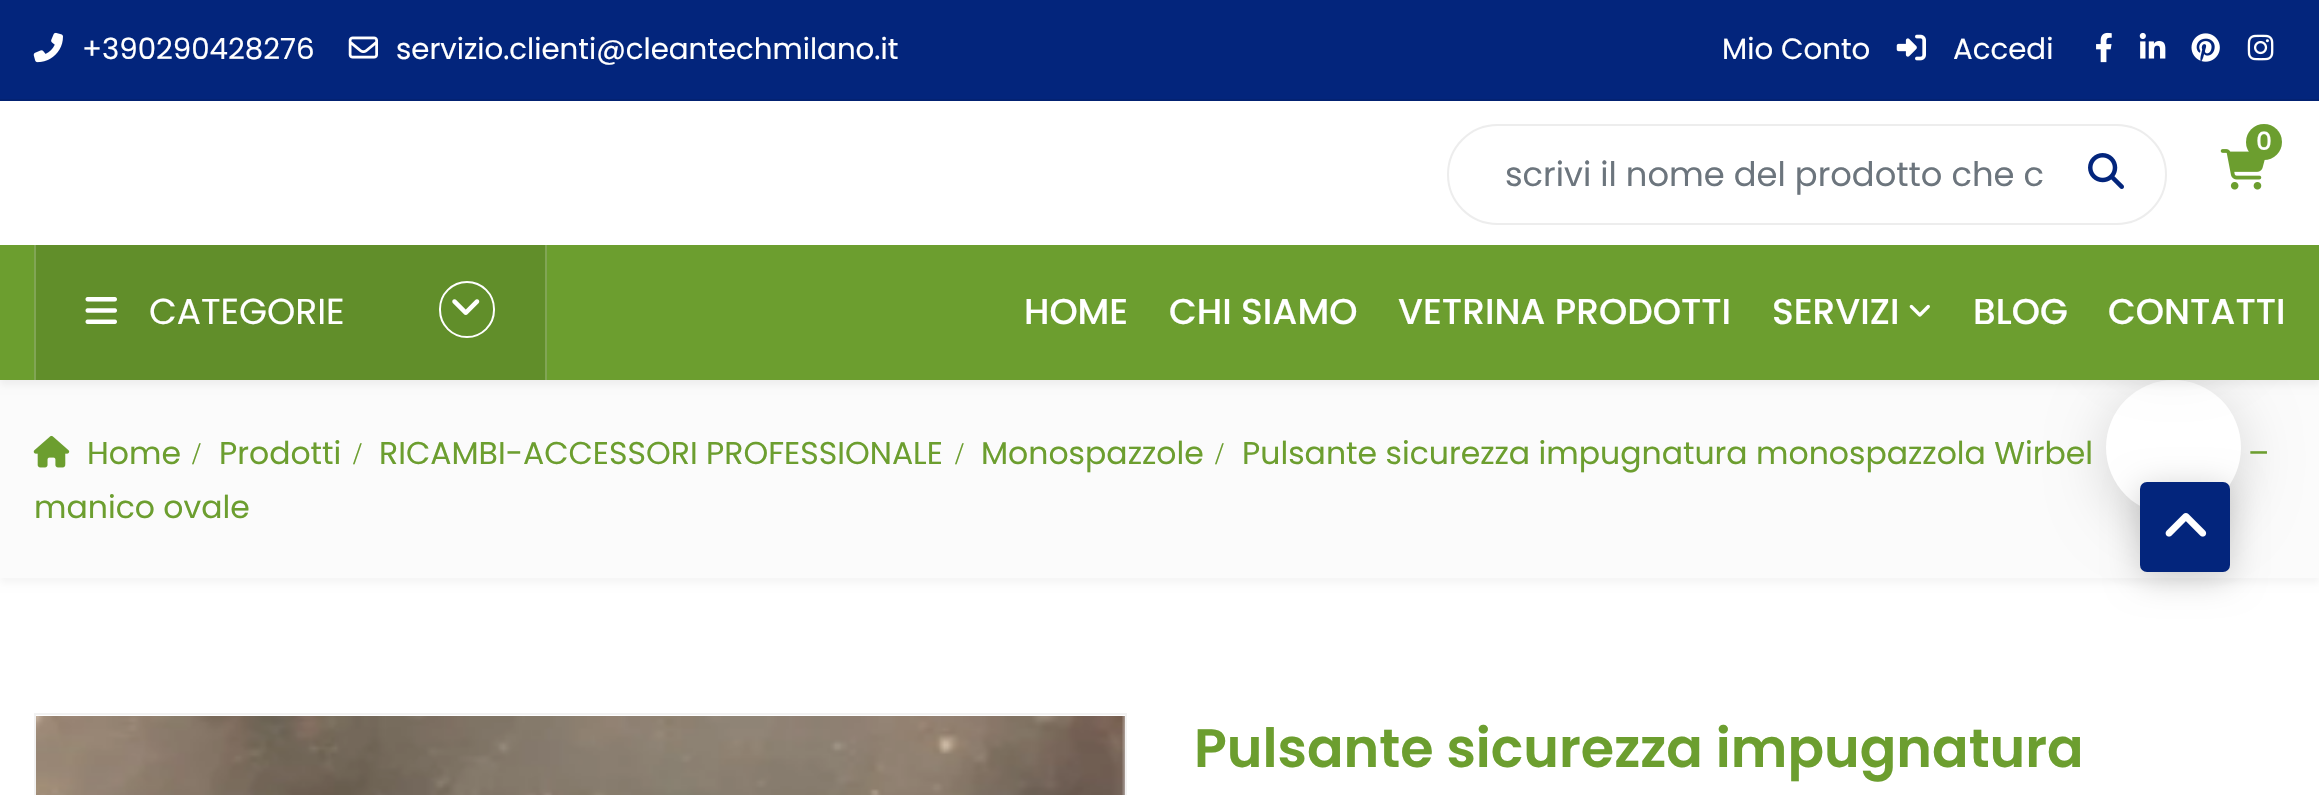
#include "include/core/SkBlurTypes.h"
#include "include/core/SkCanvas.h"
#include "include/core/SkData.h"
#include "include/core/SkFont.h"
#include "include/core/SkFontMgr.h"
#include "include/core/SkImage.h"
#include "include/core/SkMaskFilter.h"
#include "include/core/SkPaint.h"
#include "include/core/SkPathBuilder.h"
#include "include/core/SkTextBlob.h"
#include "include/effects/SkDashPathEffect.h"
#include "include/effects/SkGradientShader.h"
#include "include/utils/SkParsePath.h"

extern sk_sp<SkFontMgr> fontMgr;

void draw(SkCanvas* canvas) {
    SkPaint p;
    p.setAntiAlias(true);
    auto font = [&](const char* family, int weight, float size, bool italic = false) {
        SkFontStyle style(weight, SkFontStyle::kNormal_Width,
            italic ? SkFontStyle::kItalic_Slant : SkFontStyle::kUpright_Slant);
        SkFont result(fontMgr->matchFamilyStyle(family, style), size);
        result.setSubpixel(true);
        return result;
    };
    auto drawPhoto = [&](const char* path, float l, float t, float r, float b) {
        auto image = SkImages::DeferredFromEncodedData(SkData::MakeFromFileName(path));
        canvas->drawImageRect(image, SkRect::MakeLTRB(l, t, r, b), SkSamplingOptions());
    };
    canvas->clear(0xFFFFFFFF);
    p.setColor(0x0A000000);
    p.setMaskFilter(SkMaskFilter::MakeBlur(kNormal_SkBlurStyle, 3.5f));
    canvas->drawRect(SkRect::MakeLTRB(0, 385, 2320, 583), p);
    p.setMaskFilter(nullptr);
    p.setColor(0xFFFBFBFB);
    canvas->drawRect(SkRect::MakeLTRB(0, 380, 2319, 578), p);
    p.setColor(0x26000000);
    p.setMaskFilter(SkMaskFilter::MakeBlur(kNormal_SkBlurStyle, 28));
    canvas->drawRoundRect(SkRect::MakeLTRB(2106, 392, 2241, 527), 67.5f, 67.5f, p);
    p.setMaskFilter(nullptr);
    p.setColor(0xFFFFFFFF);
    canvas->drawCircle(2173.5f, 447.5f, 67.5f, p);
    p.setColor(0x0D000000);
    p.setMaskFilter(SkMaskFilter::MakeBlur(kNormal_SkBlurStyle, 3.5f));
    canvas->drawRect(SkRect::MakeLTRB(0, 5, 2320, 385), p);
    p.setMaskFilter(nullptr);
    p.setColor(0x26000000);
    p.setMaskFilter(SkMaskFilter::MakeBlur(kNormal_SkBlurStyle, 28));
    canvas->drawRoundRect(SkRect::MakeLTRB(2106, 223, 2241, 358), 67.5f, 67.5f, p);
    p.setMaskFilter(nullptr);
    {
        const struct { float l, t, r, b; SkColor color; } items[] = {
            {0, 101, 2319, 245, 0xFFFFFFFF},
            {0, 0, 2319, 99, 0xFF03257C},
            {0, 99, 2319, 101, 0xFF032272},
        };
        for (auto [l, t, r, b, color] : items) {
            p.setColor(color);
            canvas->drawRect(SkRect::MakeLTRB(l, t, r, b), p);
        }
    }
    drawPhoto("media/1.png", 33, 32, 63, 63);
    auto font1 = font("Poppins", 400, 29.25f);
    p.setColor(0xFFFFFFFF);
    canvas->drawString("+390290428276", 82, 59, font1, p);
    drawPhoto("media/2.png", 348, 36, 378, 59);
    canvas->drawString("servizio.clienti@cleantechmilano.it", 396, 59, font1, p);
    canvas->drawString("Mio Conto", 1722, 59, font1, p);
    drawPhoto("media/3.png", 1896, 34, 1926, 61);
    canvas->drawString("Accedi", 1953, 59, font1, p);
    drawPhoto("media/4.png", 2096, 32, 2112, 63);
    drawPhoto("media/5.png", 2139, 32, 2166, 59);
    drawPhoto("media/6.png", 2191, 33, 2220, 62);
    drawPhoto("media/7.png", 2247, 34, 2274, 61);
    drawPhoto("media/8.png", 2220, 149, 2265, 190);
    p.setColor(0xFF6C9E2F);
    canvas->drawCircle(2264, 142, 18, p);
    auto font2 = font("Poppins", 500, 25);
    p.setColor(0xFFFFFFFF);
    canvas->drawString("0", 2256, 150, font2, p);
    p.setStyle(SkPaint::kStroke_Style);
    p.setStrokeWidth(2);
    p.setColor(0xFFEDEDED);
    canvas->drawRoundRect(SkRect::MakeLTRB(1448, 125, 2166, 224), 49.5f, 49.5f, p);
    auto font3 = font("Poppins", 400, 33.75f);
    p.setStyle(SkPaint::kFill_Style);
    p.setColor(0xFF6C757D);
    canvas->drawString("scrivi il nome del prodotto che c", 1505, 186, font3, p);
    drawPhoto("media/9.png", 2088, 153, 2124, 189);
    {
        const struct { float l, t, r, b; SkColor color; } items[] = {
            {0, 245, 2319, 380, 0xFF6C9E2F},
            {36, 245, 545, 380, 0xFF618E2A},
            {545, 245, 547, 380, 0xFF81A555},
            {34, 245, 36, 380, 0xFF81A555},
        };
        for (auto [l, t, r, b, color] : items) {
            p.setColor(color);
            canvas->drawRect(SkRect::MakeLTRB(l, t, r, b), p);
        }
    }
    drawPhoto("media/10.png", 85, 297, 117, 324);
    auto font4 = font("Poppins", 400, 36);
    p.setColor(0xFFFFFFFF);
    canvas->drawString("CATEGORIE", 149, 324, font4, p);
    p.setStyle(SkPaint::kStroke_Style);
    canvas->drawRoundRect(SkRect::MakeLTRB(440, 282, 494, 337), 27, 27, p);
    drawPhoto("media/11.png", 452, 299, 480, 315);
    auto font5 = font("Poppins", 500, 36);
    p.setStyle(SkPaint::kFill_Style);
    {
        const struct { const char* s; float x, y; } items[] = {
            {"HOME", 1024, 324},
            {"CHI SIAMO", 1169, 324},
            {"VETRINA PRODOTTI", 1398, 324},
            {"SERVIZI", 1772, 324},
        };
        for (auto [s, x, y] : items) {
            canvas->drawString(s, x, y, font5, p);
        }
    }
    drawPhoto("media/12.png", 1909, 304, 1930, 317);
    canvas->drawString("BLOG", 1973, 324, font5, p);
    canvas->drawString("CONTATTI", 2108, 324, font5, p);
    p.setColor(0x33000000);
    p.setMaskFilter(SkMaskFilter::MakeBlur(kNormal_SkBlurStyle, 17));
    canvas->drawRoundRect(SkRect::MakeLTRB(2140, 488, 2230, 578), 7, 7, p);
    p.setMaskFilter(nullptr);
    p.setColor(0xFF03257C);
    canvas->drawRoundRect(SkRect::MakeLTRB(2140, 482, 2230, 572), 7, 7, p);
    drawPhoto("media/13.png", 2165, 513, 2207, 537);
    drawPhoto("media/14.png", 33, 435, 70, 468);
    auto font6 = font("Poppins", 400, 31.5f);
    p.setColor(0xFF6C9E2F);
    canvas->drawString("Home", 87, 464, font6, p);
    auto font7 = font("Liberation Serif", 400, 31.5f);
    canvas->drawString("/", 192, 464, font7, p);
    canvas->drawString("Prodotti", 219, 464, font6, p);
    canvas->drawString("/", 353, 464, font7, p);
    canvas->drawString("RICAMBI-ACCESSORI PROFESSIONALE", 379, 464, font6, p);
    canvas->drawString("/", 955, 464, font7, p);
    canvas->drawString("Monospazzole", 981, 464, font6, p);
    canvas->drawString("/", 1215, 464, font7, p);
    {
        const struct { const char* s; float x, y; } items[] = {
            {"Pulsante sicurezza impugnatura monospazzola Wirbel", 1242, 464},
            {"–", 2248, 464},
            {"manico ovale", 34, 518},
        };
        for (auto [s, x, y] : items) {
            canvas->drawString(s, x, y, font6, p);
        }
    }
    p.setStyle(SkPaint::kStroke_Style);
    p.setColor(0xFFF2F2F2);
    canvas->drawRect(SkRect::MakeLTRB(35, 714, 1126, 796), p);
    drawPhoto("media/15.png", 36, 716, 1125, 795);
    auto font8 = font("Poppins", 600, 54);
    p.setStyle(SkPaint::kFill_Style);
    p.setColor(0xFF6C9E2F);
    canvas->drawString("Pulsante sicurezza impugnatura", 1194, 767, font8, p);
}
